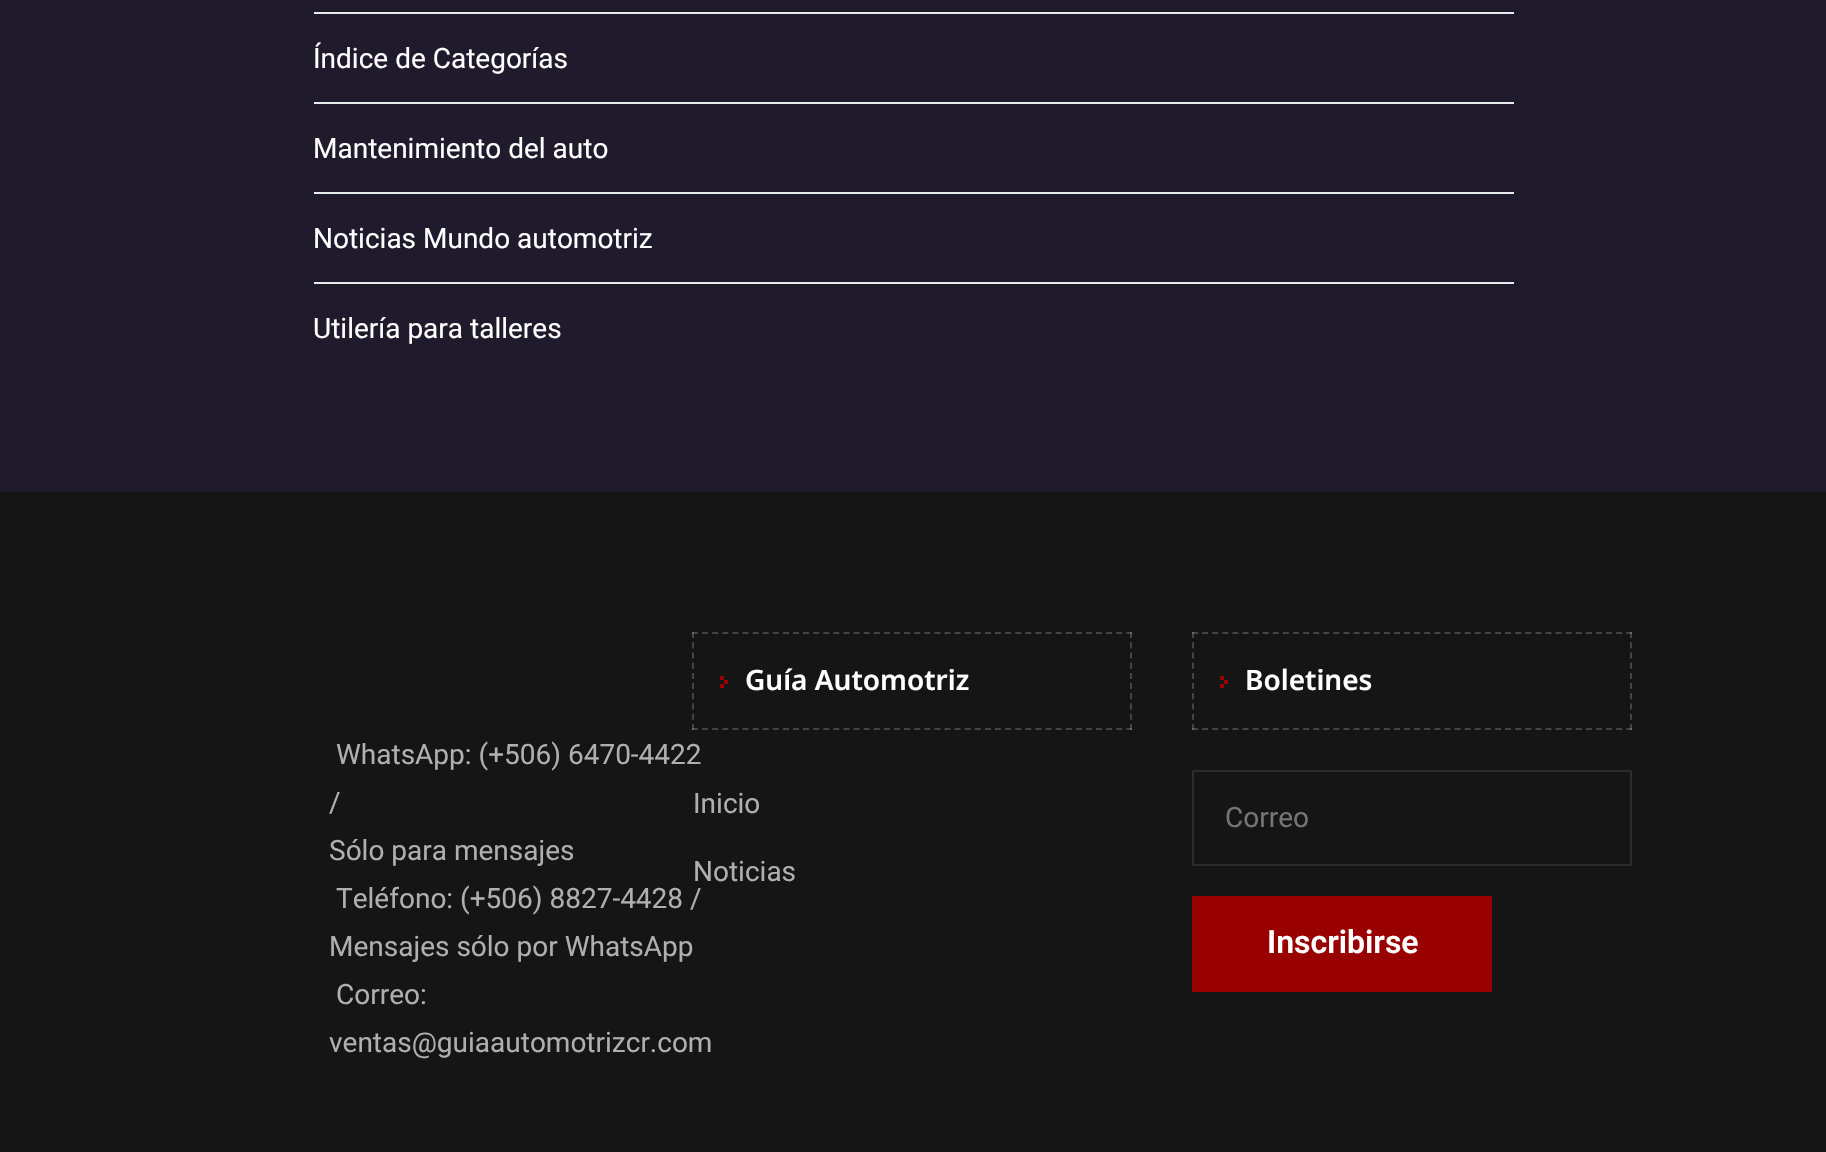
#include "include/core/SkBlurTypes.h"
#include "include/core/SkCanvas.h"
#include "include/core/SkData.h"
#include "include/core/SkFont.h"
#include "include/core/SkFontMgr.h"
#include "include/core/SkImage.h"
#include "include/core/SkMaskFilter.h"
#include "include/core/SkPaint.h"
#include "include/core/SkPathBuilder.h"
#include "include/core/SkTextBlob.h"
#include "include/effects/SkDashPathEffect.h"
#include "include/effects/SkGradientShader.h"
#include "include/utils/SkParsePath.h"

extern sk_sp<SkFontMgr> fontMgr;

void draw(SkCanvas* canvas) {
    SkPaint p;
    p.setAntiAlias(true);
    auto font = [&](const char* family, int weight, float size, bool italic = false) {
        SkFontStyle style(weight, SkFontStyle::kNormal_Width,
            italic ? SkFontStyle::kItalic_Slant : SkFontStyle::kUpright_Slant);
        SkFont result(fontMgr->matchFamilyStyle(family, style), size);
        result.setSubpixel(true);
        return result;
    };
    canvas->clear(0xFF1F1B2D);
    p.setColor(0xFFE9ECEF);
    canvas->drawRect(SkRect::MakeLTRB(314, 12, 1514, 14), p);
    canvas->drawRect(SkRect::MakeLTRB(314, 102, 1514, 104), p);
    auto font1 = font("Roboto", 400, 28);
    p.setColor(0xFFFFFFFF);
    canvas->drawString("Índice de Categorías", 313, 68, font1, p);
    p.setColor(0xFFE9ECEF);
    canvas->drawRect(SkRect::MakeLTRB(314, 192, 1514, 194), p);
    p.setColor(0xFFFFFFFF);
    canvas->drawString("Mantenimiento del auto", 313, 158, font1, p);
    p.setColor(0xFFE9ECEF);
    canvas->drawRect(SkRect::MakeLTRB(314, 282, 1514, 284), p);
    p.setColor(0xFFFFFFFF);
    canvas->drawString("Noticias Mundo automotriz", 313, 248, font1, p);
    canvas->drawString("Utilería para talleres", 313, 338, font1, p);
    p.setColor(0xFF151516);
    canvas->drawRect(SkRect::MakeLTRB(0, 492, 1826, 1152), p);
    p.setColor(0xFFAFAFAF);
    {
        const struct { const char* s; float x, y; } items[] = {
            {"WhatsApp: (+506) 6470-4422", 336, 764},
            {"/", 329, 812},
            {"Sólo para mensajes", 329, 860},
            {"Teléfono: (+506) 8827-4428 /", 336, 908},
            {"Mensajes sólo por WhatsApp", 329, 956},
            {"Correo:", 336, 1004},
            {"ventas@guiaautomotrizcr.com", 329, 1052},
        };
        for (auto [s, x, y] : items) {
            canvas->drawString(s, x, y, font1, p);
        }
    }
    p.setStyle(SkPaint::kStroke_Style);
    p.setStrokeWidth(2);
    p.setColor(0xFF444445);
    p.setPathEffect(SkDashPathEffect::Make({{6, 4.1f}}, 0));
    canvas->drawPath(SkPathBuilder().moveTo(692, 633).lineTo(1132, 633).detach(), p);
    p.setPathEffect(nullptr);
    p.setColor(0x33FFFFFF);
    p.setPathEffect(SkDashPathEffect::Make({{6, 4.22f}}, 0));
    canvas->drawPath(SkPathBuilder().moveTo(1131, 632).lineTo(1131, 730).detach(), p);
    p.setPathEffect(nullptr);
    p.setPathEffect(SkDashPathEffect::Make({{6, 4.1f}}, 0));
    canvas->drawPath(SkPathBuilder().moveTo(692, 729).lineTo(1132, 729).detach(), p);
    p.setPathEffect(nullptr);
    p.setPathEffect(SkDashPathEffect::Make({{6, 4.22f}}, 0));
    canvas->drawPath(SkPathBuilder().moveTo(693, 632).lineTo(693, 730).detach(), p);
    p.setPathEffect(nullptr);
    p.setStyle(SkPaint::kFill_Style);
    {
        const struct { float l, t, r, b; SkColor color; } items[] = {
            {720, 676, 724, 680, 0xFF990000},
            {720, 684, 724, 688, 0xFF990000},
            {724, 680, 728, 684, 0xFF990000},
        };
        for (auto [l, t, r, b, color] : items) {
            p.setColor(color);
            canvas->drawRect(SkRect::MakeLTRB(l, t, r, b), p);
        }
    }
    auto font2 = font("Noto Sans", 600, 28);
    p.setColor(0xFFFFFFFF);
    canvas->drawString("Guía Automotriz", 745, 690, font2, p);
    p.setColor(0xFFAFAFAF);
    canvas->drawString("Inicio", 693, 813, font1, p);
    canvas->drawString("Noticias", 693, 881, font1, p);
    p.setStyle(SkPaint::kStroke_Style);
    p.setColor(0xFF444445);
    p.setPathEffect(SkDashPathEffect::Make({{6, 4.1f}}, 0));
    canvas->drawPath(SkPathBuilder().moveTo(1192, 633).lineTo(1632, 633).detach(), p);
    p.setPathEffect(nullptr);
    p.setColor(0x33FFFFFF);
    p.setPathEffect(SkDashPathEffect::Make({{6, 4.22f}}, 0));
    canvas->drawPath(SkPathBuilder().moveTo(1631, 632).lineTo(1631, 730).detach(), p);
    p.setPathEffect(nullptr);
    p.setPathEffect(SkDashPathEffect::Make({{6, 4.1f}}, 0));
    canvas->drawPath(SkPathBuilder().moveTo(1192, 729).lineTo(1632, 729).detach(), p);
    p.setPathEffect(nullptr);
    p.setPathEffect(SkDashPathEffect::Make({{6, 4.22f}}, 0));
    canvas->drawPath(SkPathBuilder().moveTo(1193, 632).lineTo(1193, 730).detach(), p);
    p.setPathEffect(nullptr);
    p.setStyle(SkPaint::kFill_Style);
    {
        const struct { float l, t, r, b; SkColor color; } items[] = {
            {1220, 676, 1224, 680, 0xFF990000},
            {1220, 684, 1224, 688, 0xFF990000},
            {1224, 680, 1228, 684, 0xFF990000},
        };
        for (auto [l, t, r, b, color] : items) {
            p.setColor(color);
            canvas->drawRect(SkRect::MakeLTRB(l, t, r, b), p);
        }
    }
    p.setColor(0xFFFFFFFF);
    canvas->drawString("Boletines", 1245, 690, font2, p);
    p.setStyle(SkPaint::kStroke_Style);
    p.setColor(0xFF2C2C2D);
    canvas->drawRect(SkRect::MakeLTRB(1193, 771, 1631, 865), p);
    p.setStyle(SkPaint::kFill_Style);
    p.setColor(0xFF757575);
    canvas->drawString("Correo", 1225, 827, font1, p);
    p.setColor(0xFF990000);
    canvas->drawRect(SkRect::MakeLTRB(1192, 896, 1492, 992), p);
    auto font3 = font("Roboto", 600, 32);
    p.setColor(0xFFFFFFFF);
    canvas->drawString("Inscribirse", 1267, 953, font3, p);
}
